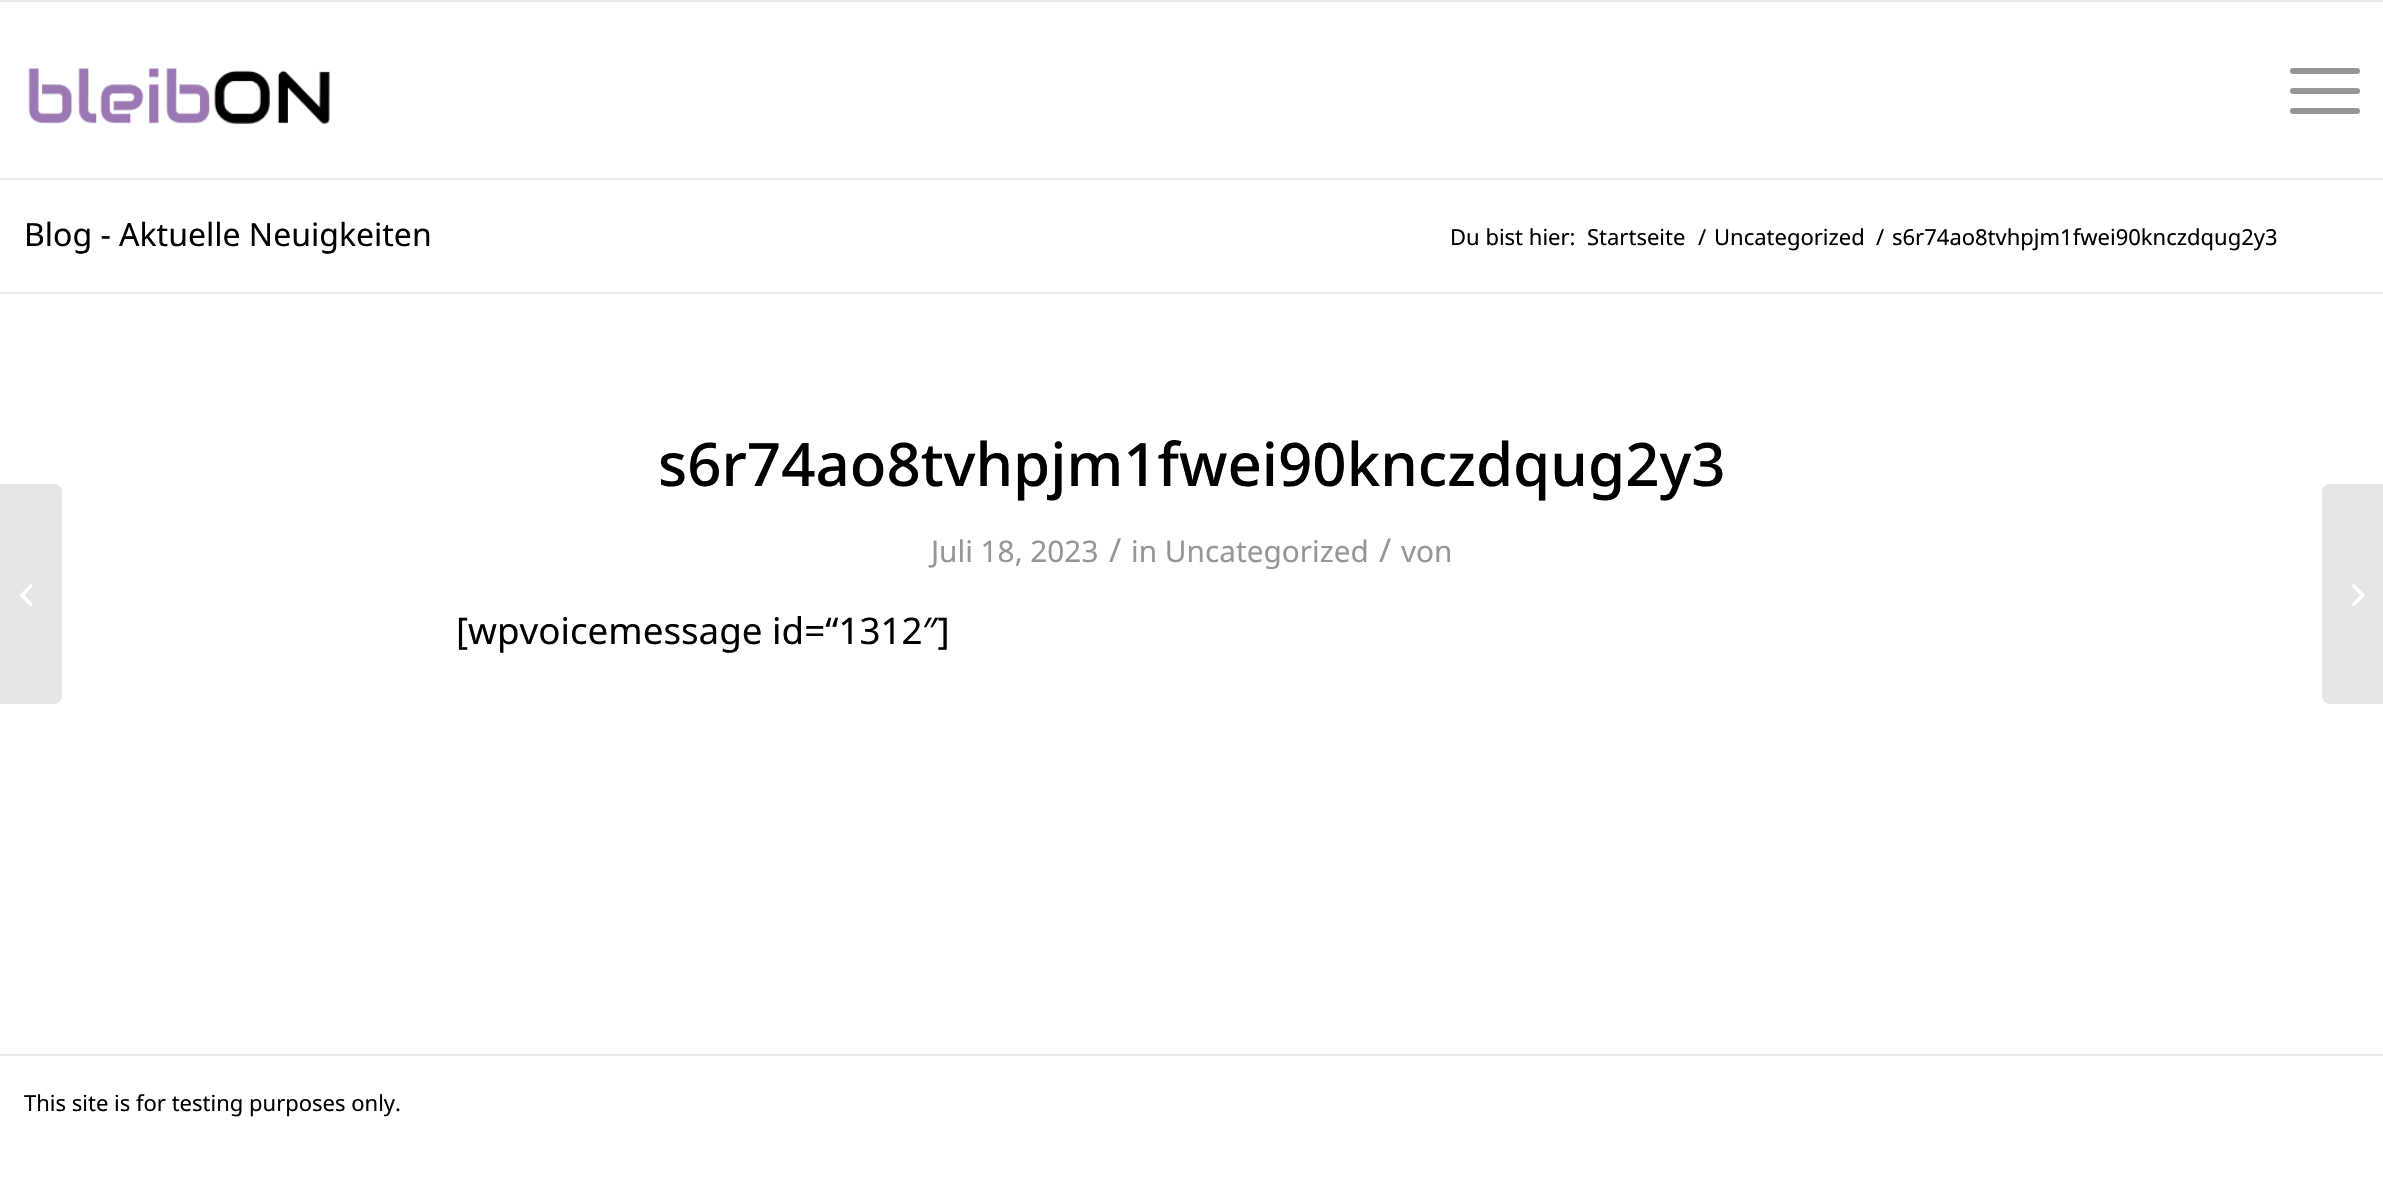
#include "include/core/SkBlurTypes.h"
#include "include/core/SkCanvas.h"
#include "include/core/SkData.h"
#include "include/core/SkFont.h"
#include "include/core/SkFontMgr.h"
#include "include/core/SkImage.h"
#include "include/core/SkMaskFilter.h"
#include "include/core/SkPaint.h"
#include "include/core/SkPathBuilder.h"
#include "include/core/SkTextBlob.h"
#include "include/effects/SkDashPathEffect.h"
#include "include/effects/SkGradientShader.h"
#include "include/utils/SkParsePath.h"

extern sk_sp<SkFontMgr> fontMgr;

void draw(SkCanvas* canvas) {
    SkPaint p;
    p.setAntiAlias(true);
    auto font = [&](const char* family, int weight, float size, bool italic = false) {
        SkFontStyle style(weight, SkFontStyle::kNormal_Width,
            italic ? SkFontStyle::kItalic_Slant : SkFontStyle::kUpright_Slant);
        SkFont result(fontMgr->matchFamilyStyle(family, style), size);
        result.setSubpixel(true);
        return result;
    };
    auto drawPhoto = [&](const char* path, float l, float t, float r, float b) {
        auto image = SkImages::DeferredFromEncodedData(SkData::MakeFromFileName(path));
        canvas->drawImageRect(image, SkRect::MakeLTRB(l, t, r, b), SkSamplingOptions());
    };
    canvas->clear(0xFFFFFFFF);
    p.setColor(0xFFEBEBEB);
    canvas->drawRect(SkRect::MakeLTRB(0, 0, 2383, 2), p);
    canvas->drawRect(SkRect::MakeLTRB(0, 178, 2383, 180), p);
    drawPhoto("media/1.png", 28, 67, 330, 125);
    p.setColor(0xFF969696);
    canvas->drawRoundRect(SkRect::MakeLTRB(2290, 88, 2360, 94), 3, 3, p);
    canvas->drawRoundRect(SkRect::MakeLTRB(2290, 68, 2360, 74), 3, 3, p);
    canvas->drawRoundRect(SkRect::MakeLTRB(2290, 108, 2360, 114), 3, 3, p);
    auto font1 = font("Noto Sans", 400, 32);
    p.setColor(0xFF000000);
    canvas->drawString("Blog - Aktuelle Neuigkeiten", 24, 246, font1, p);
    auto font2 = font("Noto Sans", 400, 22);
    {
        const struct { const char* s; float x, y; } items[] = {
            {"Du bist hier:", 1450, 245},
            {"Startseite", 1587, 245},
            {"/", 1698, 245},
            {"Uncategorized", 1714, 245},
            {"/", 1876, 245},
            {"s6r74ao8tvhpjm1fwei90knczdqug2y3", 1892, 245},
        };
        for (auto [s, x, y] : items) {
            canvas->drawString(s, x, y, font2, p);
        }
    }
    p.setColor(0xFFEBEBEB);
    canvas->drawRect(SkRect::MakeLTRB(0, 292, 2383, 294), p);
    auto font3 = font("Noto Sans", 500, 60);
    p.setColor(0xFF000000);
    canvas->drawString("s6r74ao8tvhpjm1fwei90knczdqug2y3", 658, 486, font3, p);
    auto font4 = font("Noto Sans", 400, 29.75f);
    p.setColor(0xFF969696);
    canvas->drawString("Juli 18, 2023", 931, 562, font4, p);
    auto font5 = font("Noto Sans", 400, 33);
    canvas->drawString("/", 1109, 562, font5, p);
    canvas->drawString("in Uncategorized", 1131, 562, font4, p);
    canvas->drawString("/", 1379, 562, font5, p);
    canvas->drawString("von", 1401, 562, font4, p);
    auto font6 = font("Noto Sans", 400, 36.75f);
    p.setColor(0xFF000000);
    canvas->drawString("[wpvoicemessage id=“1312″]", 456, 644, font6, p);
    p.setColor(0xFFEBEBEB);
    canvas->drawRect(SkRect::MakeLTRB(0, 1054, 2383, 1056), p);
    p.setColor(0xFF000000);
    canvas->drawString("This site is for testing purposes only.", 24, 1111, font2, p);
    p.setColor(0xFFE6E6E6);
    canvas->drawPath(SkPathBuilder().moveTo(0, 484).lineTo(54, 484).cubicTo(58.5f, 484, 62, 487.5f, 62, 492).lineTo(62, 696).cubicTo(62, 700.5f, 58.5f, 704, 54, 704).lineTo(0, 704).close().detach(), p);
    drawPhoto("media/2.png", 20, 584, 33, 606);
    canvas->drawPath(SkPathBuilder().moveTo(2330, 484).lineTo(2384, 484).lineTo(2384, 704).lineTo(2330, 704).cubicTo(2325.5f, 704, 2322, 700.5f, 2322, 696).lineTo(2322, 492).cubicTo(2322, 487.5f, 2325.5f, 484, 2330, 484).close().detach(), p);
    drawPhoto("media/3.png", 2352, 584, 2365, 607);
}
